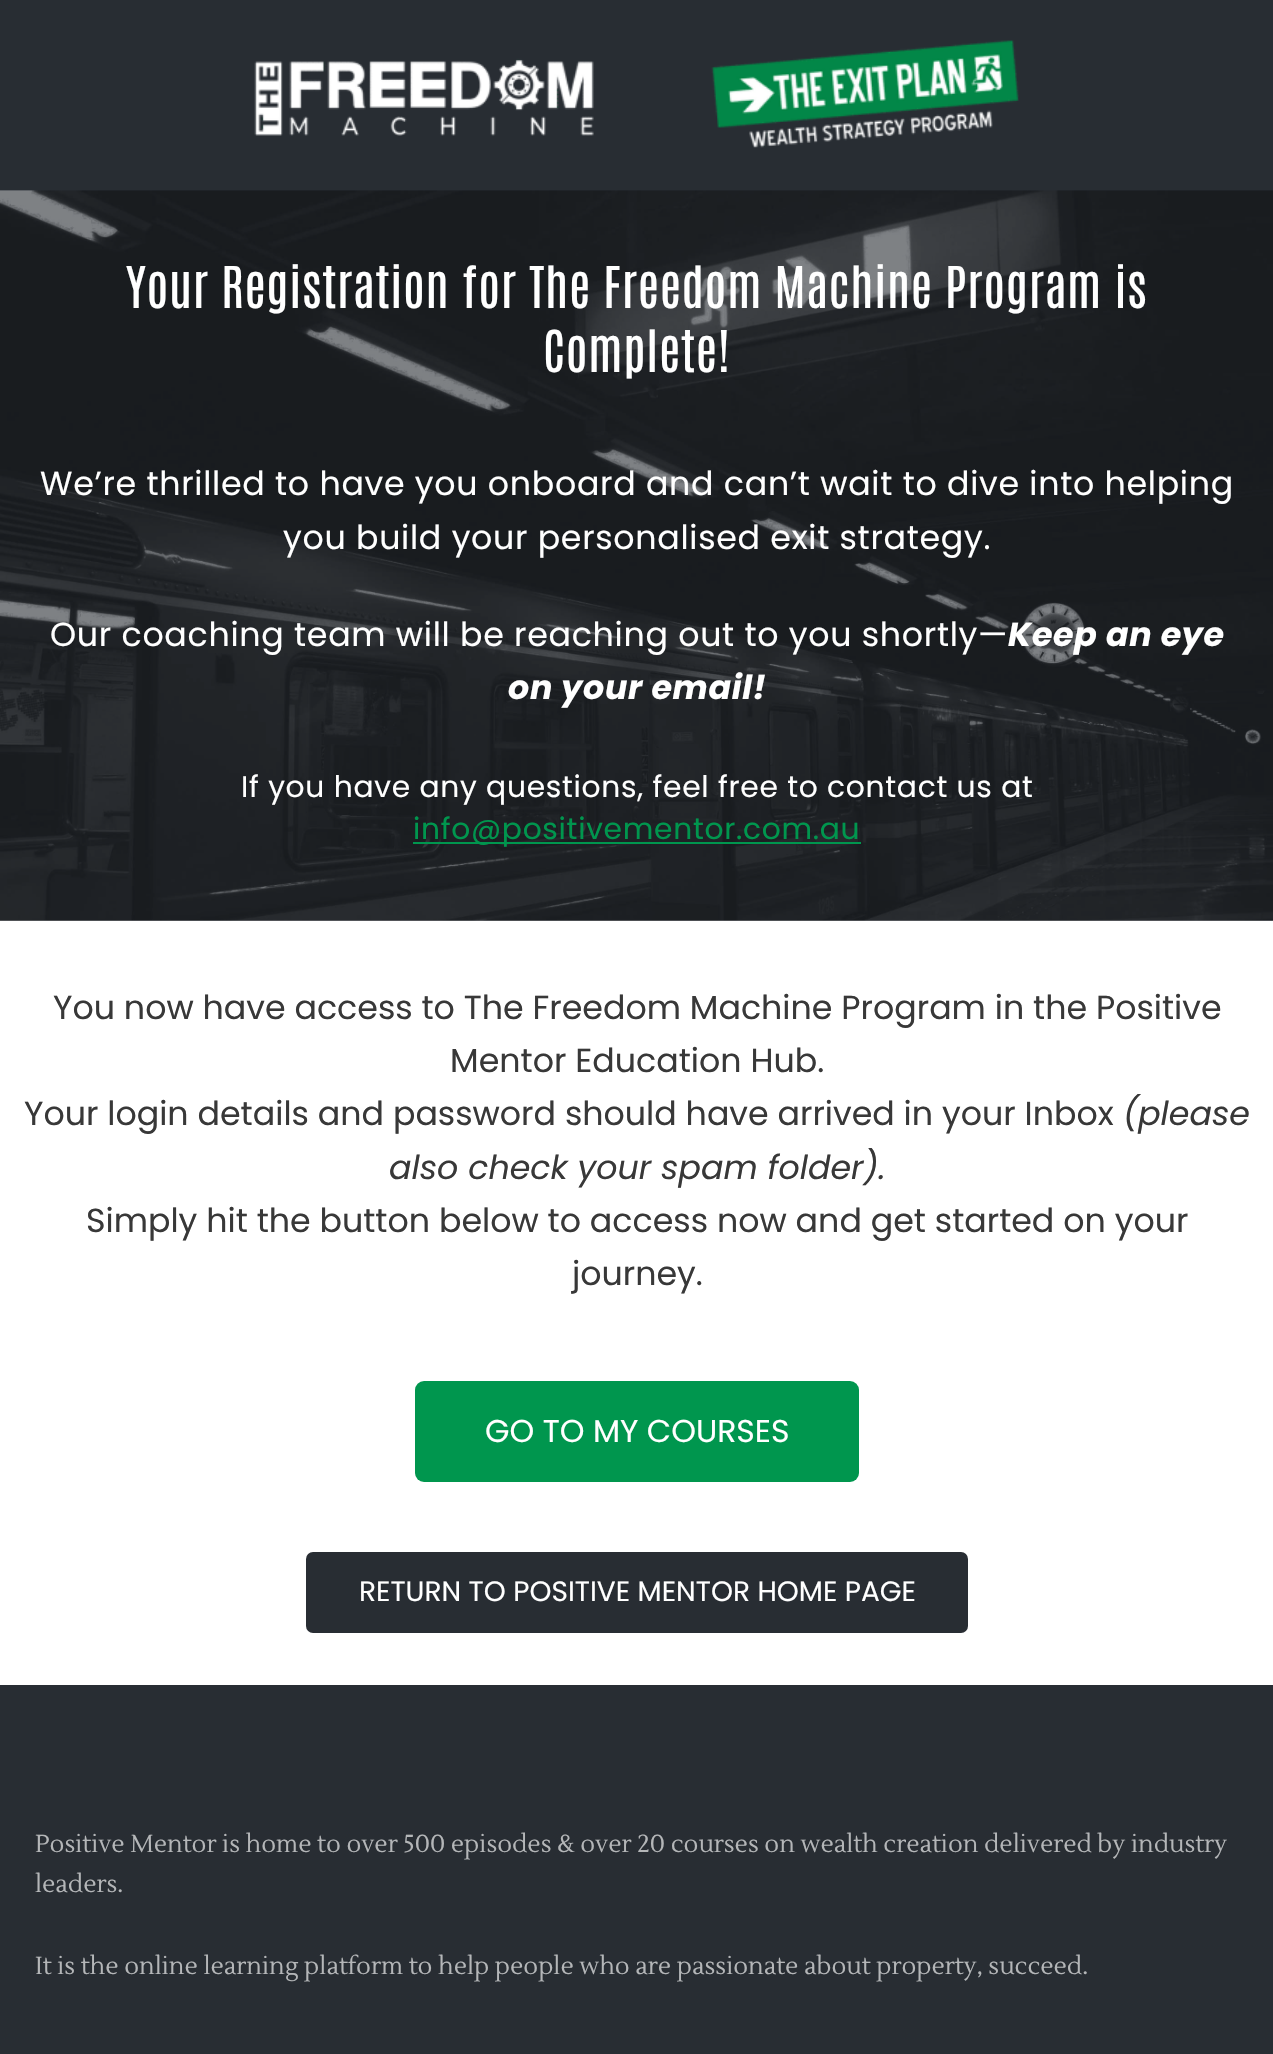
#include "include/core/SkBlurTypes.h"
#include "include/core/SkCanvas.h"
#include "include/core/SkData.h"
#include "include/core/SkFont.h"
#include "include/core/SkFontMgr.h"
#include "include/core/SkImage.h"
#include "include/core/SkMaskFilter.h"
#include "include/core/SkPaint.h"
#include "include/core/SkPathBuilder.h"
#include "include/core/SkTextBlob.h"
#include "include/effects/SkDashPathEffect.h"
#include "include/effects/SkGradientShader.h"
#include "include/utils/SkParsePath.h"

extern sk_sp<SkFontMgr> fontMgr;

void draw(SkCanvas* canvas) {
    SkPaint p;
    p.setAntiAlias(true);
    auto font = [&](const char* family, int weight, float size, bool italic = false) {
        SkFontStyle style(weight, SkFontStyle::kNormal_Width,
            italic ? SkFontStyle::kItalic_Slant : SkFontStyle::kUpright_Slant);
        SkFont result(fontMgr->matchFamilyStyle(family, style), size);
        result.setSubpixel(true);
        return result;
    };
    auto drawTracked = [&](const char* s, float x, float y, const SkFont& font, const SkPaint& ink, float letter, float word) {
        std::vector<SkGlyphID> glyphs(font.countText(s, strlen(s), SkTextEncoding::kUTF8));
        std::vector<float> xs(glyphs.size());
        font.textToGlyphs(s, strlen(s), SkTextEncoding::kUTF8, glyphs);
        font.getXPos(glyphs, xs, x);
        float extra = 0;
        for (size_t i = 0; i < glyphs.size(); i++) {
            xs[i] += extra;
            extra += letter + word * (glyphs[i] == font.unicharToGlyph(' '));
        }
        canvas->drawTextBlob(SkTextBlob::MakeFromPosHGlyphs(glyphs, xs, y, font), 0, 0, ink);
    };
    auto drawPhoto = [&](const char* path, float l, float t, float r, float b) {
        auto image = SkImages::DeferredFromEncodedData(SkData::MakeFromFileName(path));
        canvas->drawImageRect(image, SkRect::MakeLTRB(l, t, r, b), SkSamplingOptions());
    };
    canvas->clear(0xFFFFFFFF);
    p.setColor(0xFF7E8185);
    canvas->drawRect(SkRect::MakeLTRB(0, 920, 1273, 921), p);
    p.setColor(0xFF282D33);
    canvas->drawRect(SkRect::MakeLTRB(0, 0, 1273, 191), p);
    drawPhoto("media/1.png", 254, 40, 1019, 148);
    drawPhoto("media/2.png", 0, 190, 1273, 921);
    auto font1 = font("Antonio", 400, 49);
    p.setColor(0xFFFFFFFF);
    drawTracked("Your Registration for The Freedom Machine Program is", 126, 308, font1, p, 0.7f, 0);
    drawTracked("Complete!", 543, 372, font1, p, 0.7f, 0);
    auto font2 = font("Poppins", 400, 33.25f);
    {
        const struct { const char* s; float x, y; } items[] = {
            {"We’re thrilled to have you onboard and can’t wait to dive into helping", 40, 495},
            {"you build your personalised exit strategy.", 283, 549},
            {"Our coaching team will be reaching out to you shortly—", 50, 646},
        };
        for (auto [s, x, y] : items) {
            drawTracked(s, x, y, font2, p, 0.7f, 0);
        }
    }
    auto font3 = font("Poppins", 700, 33.25f, true);
    drawTracked("Keep an eye", 1008, 646, font3, p, 0.7f, 0);
    drawTracked("on your email!", 508, 699, font3, p, 0.7f, 0);
    auto font4 = font("Poppins", 400, 29.75f);
    drawTracked("If you have any questions, feel free to contact us at", 241, 797, font4, p, 0.7f, 0);
    p.setColor(0xFF00964E);
    canvas->drawRect(SkRect::MakeLTRB(413, 842, 861, 844), p);
    drawTracked("info@positivementor.com.au", 413, 839, font4, p, 0.7f, 0);
    p.setColor(0xFF383838);
    {
        const struct { const char* s; float x, y; } items[] = {
            {"You now have access to The Freedom Machine Program in the Positive", 53, 1019},
            {"Mentor Education Hub.", 450, 1072},
            {"Your login details and password should have arrived in your Inbox", 24, 1125},
        };
        for (auto [s, x, y] : items) {
            canvas->drawString(s, x, y, font2, p);
        }
    }
    auto font5 = font("Poppins", 400, 33.25f, true);
    canvas->drawString("(please", 1123, 1125, font5, p);
    canvas->drawString("also check your spam folder).", 389, 1179, font5, p);
    canvas->drawString("Simply hit the button below to access now and get started on your", 86, 1232, font2, p);
    canvas->drawString("journey.", 572, 1285, font2, p);
    p.setColor(0xFF00964E);
    canvas->drawRoundRect(SkRect::MakeLTRB(415, 1381, 859, 1482), 9, 9, p);
    auto font6 = font("Poppins", 400, 31.5f);
    p.setColor(0xFFFFFFFF);
    canvas->drawString("GO TO MY COURSES", 485, 1442, font6, p);
    p.setColor(0xFF282D33);
    canvas->drawRoundRect(SkRect::MakeLTRB(306, 1552, 968, 1633), 7, 7, p);
    auto font7 = font("Poppins", 400, 28);
    p.setColor(0xFFFFFFFF);
    canvas->drawString("RETURN TO POSITIVE MENTOR HOME PAGE", 359, 1601, font7, p);
    p.setColor(0xFF282D33);
    canvas->drawRect(SkRect::MakeLTRB(0, 1685, 1273, 2054), p);
    auto font8 = font("Lustria", 400, 24.5f);
    p.setColor(0xFFB4B6B8);
    {
        const struct { const char* s; float x, y; } items[] = {
            {"Positive Mentor is home to over 500 episodes & over 20 courses on wealth creation delivered by industry", 35, 1852},
            {"leaders.", 35, 1892},
            {"It is the online learning platform to help people who are passionate about property, succeed.", 35, 1974},
        };
        for (auto [s, x, y] : items) {
            canvas->drawString(s, x, y, font8, p);
        }
    }
}
